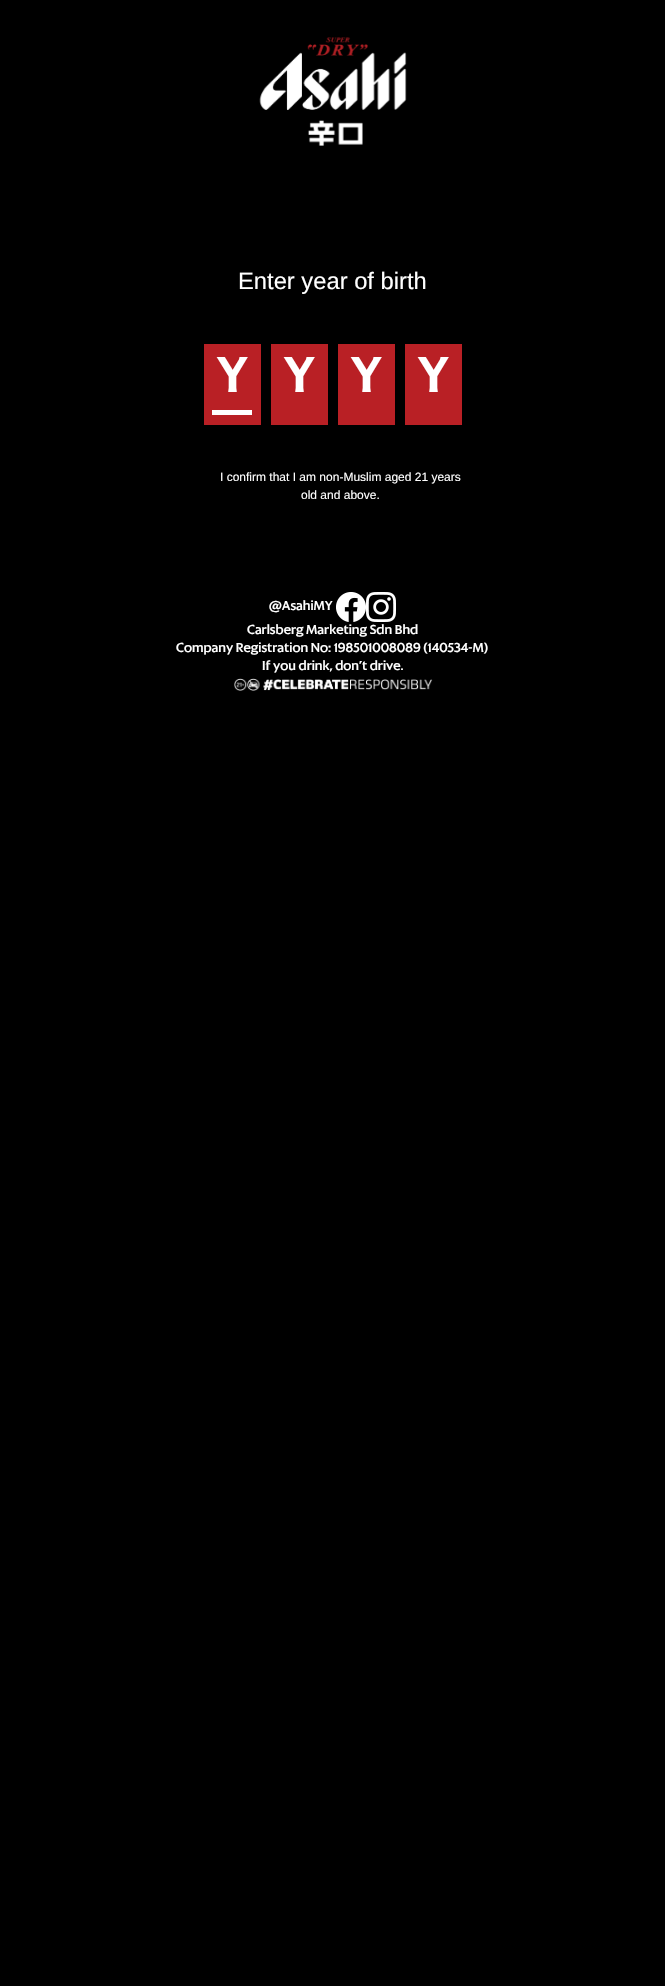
#include "include/core/SkBlurTypes.h"
#include "include/core/SkCanvas.h"
#include "include/core/SkData.h"
#include "include/core/SkFont.h"
#include "include/core/SkFontMgr.h"
#include "include/core/SkImage.h"
#include "include/core/SkMaskFilter.h"
#include "include/core/SkPaint.h"
#include "include/core/SkPathBuilder.h"
#include "include/core/SkTextBlob.h"
#include "include/effects/SkDashPathEffect.h"
#include "include/effects/SkGradientShader.h"
#include "include/utils/SkParsePath.h"

extern sk_sp<SkFontMgr> fontMgr;

void draw(SkCanvas* canvas) {
    SkPaint p;
    p.setAntiAlias(true);
    auto font = [&](const char* family, int weight, float size, bool italic = false) {
        SkFontStyle style(weight, SkFontStyle::kNormal_Width,
            italic ? SkFontStyle::kItalic_Slant : SkFontStyle::kUpright_Slant);
        SkFont result(fontMgr->matchFamilyStyle(family, style), size);
        result.setSubpixel(true);
        return result;
    };
    auto drawPhoto = [&](const char* path, float l, float t, float r, float b) {
        auto image = SkImages::DeferredFromEncodedData(SkData::MakeFromFileName(path));
        canvas->drawImageRect(image, SkRect::MakeLTRB(l, t, r, b), SkSamplingOptions());
    };
    canvas->clear(0xFF000000);
    drawPhoto("media/1.png", 259, 37, 407, 146);
    auto font1 = font("Liberation Sans", 400, 23.75f);
    p.setColor(0xFFFFFFFF);
    canvas->drawString("Enter year of birth", 238, 289, font1, p);
    p.setColor(0xFFB92025);
    canvas->drawRect(SkRect::MakeLTRB(204, 344, 261, 425), p);
    auto font2 = font("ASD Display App", 700, 45);
    p.setColor(0xFFFFFFFF);
    canvas->drawString("Y", 217, 392, font2, p);
    canvas->drawRect(SkRect::MakeLTRB(212, 410, 252, 415), p);
    p.setColor(0xFFB92025);
    canvas->drawRect(SkRect::MakeLTRB(271, 344, 328, 425), p);
    p.setColor(0xFFFFFFFF);
    canvas->drawString("Y", 284, 392, font2, p);
    p.setColor(0xFFB92025);
    canvas->drawRect(SkRect::MakeLTRB(338, 344, 395, 425), p);
    p.setColor(0xFFFFFFFF);
    canvas->drawString("Y", 351, 392, font2, p);
    p.setColor(0xFFB92025);
    canvas->drawRect(SkRect::MakeLTRB(405, 344, 462, 425), p);
    p.setColor(0xFFFFFFFF);
    canvas->drawString("Y", 418, 392, font2, p);
    auto font3 = font("Liberation Sans", 400, 12);
    canvas->drawString("I confirm that I am non-Muslim aged 21 years", 220, 481, font3, p);
    canvas->drawString("old and above.", 301, 499, font3, p);
    auto font4 = font("ASD Display App", 400, 12);
    canvas->drawString("@AsahiMY", 269, 610, font4, p);
    drawPhoto("media/2.png", 336, 592, 366, 622);
    drawPhoto("media/3.png", 366, 592, 396, 622);
    {
        const struct { const char* s; float x, y; } items[] = {
            {"Carlsberg Marketing Sdn Bhd", 247, 634},
            {"Company Registration No: 198501008089 (140534-M)", 176, 652},
            {"If you drink, don’t drive.", 262, 670},
        };
        for (auto [s, x, y] : items) {
            canvas->drawString(s, x, y, font4, p);
        }
    }
    drawPhoto("media/4.png", 234, 678, 433, 691);
}
